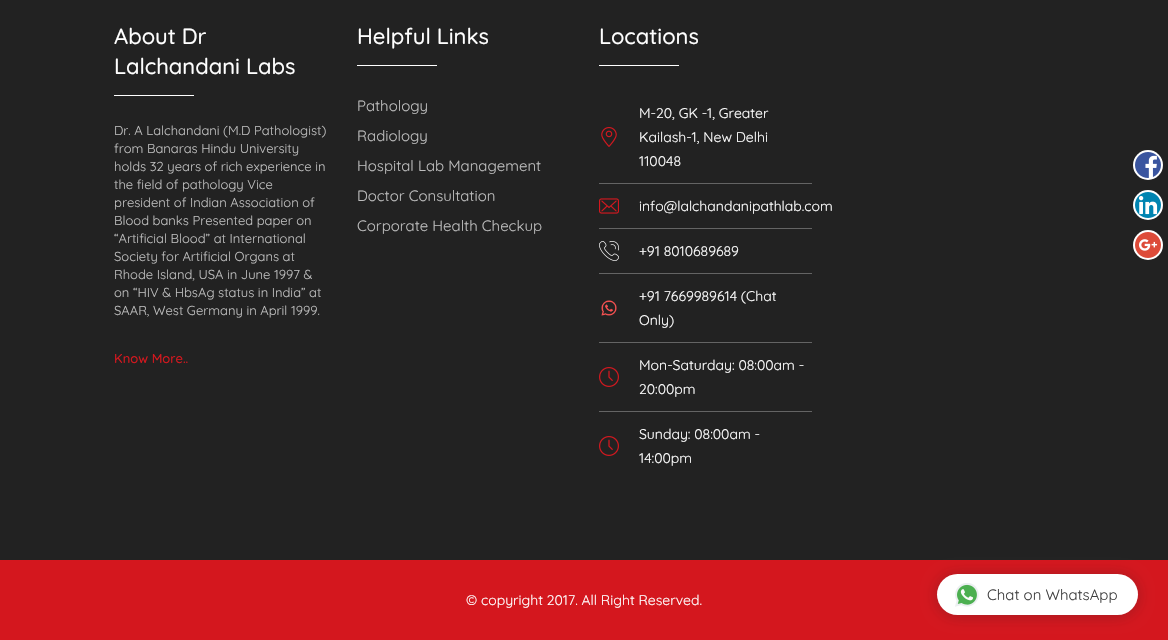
#include "include/core/SkBlurTypes.h"
#include "include/core/SkCanvas.h"
#include "include/core/SkData.h"
#include "include/core/SkFont.h"
#include "include/core/SkFontMgr.h"
#include "include/core/SkImage.h"
#include "include/core/SkMaskFilter.h"
#include "include/core/SkPaint.h"
#include "include/core/SkPathBuilder.h"
#include "include/core/SkTextBlob.h"
#include "include/effects/SkDashPathEffect.h"
#include "include/effects/SkGradientShader.h"
#include "include/utils/SkParsePath.h"

extern sk_sp<SkFontMgr> fontMgr;

void draw(SkCanvas* canvas) {
    SkPaint p;
    p.setAntiAlias(true);
    auto font = [&](const char* family, int weight, float size, bool italic = false) {
        SkFontStyle style(weight, SkFontStyle::kNormal_Width,
            italic ? SkFontStyle::kItalic_Slant : SkFontStyle::kUpright_Slant);
        SkFont result(fontMgr->matchFamilyStyle(family, style), size);
        result.setSubpixel(true);
        return result;
    };
    auto drawPhoto = [&](const char* path, float l, float t, float r, float b) {
        auto image = SkImages::DeferredFromEncodedData(SkData::MakeFromFileName(path));
        canvas->drawImageRect(image, SkRect::MakeLTRB(l, t, r, b), SkSamplingOptions());
    };
    canvas->clear(0xFF222222);
    auto font1 = font("Quicksand", 500, 22);
    p.setColor(0xFFFFFFFF);
    canvas->drawString("About Dr", 114, 44, font1, p);
    canvas->drawString("Lalchandani Labs", 114, 74, font1, p);
    canvas->drawRect(SkRect::MakeLTRB(114, 95, 194, 96), p);
    auto font2 = font("Quicksand", 400, 13);
    p.setColor(0xFFBDBDBD);
    {
        const struct { const char* s; float x, y; } items[] = {
            {"Dr. A Lalchandani (M.D Pathologist)", 114, 135},
            {"from Banaras Hindu University", 114, 153},
            {"holds 32 years of rich experience in", 114, 171},
            {"the field of pathology Vice", 114, 189},
            {"president of Indian Association of", 114, 207},
            {"Blood banks Presented paper on", 114, 225},
            {"“Artificial Blood” at International", 114, 243},
            {"Society for Artificial Organs at", 114, 261},
            {"Rhode Island, USA in June 1997 &", 114, 279},
            {"on “HIV & HbsAg status in India” at", 114, 297},
            {"SAAR, West Germany in April 1999.", 114, 315},
        };
        for (auto [s, x, y] : items) {
            canvas->drawString(s, x, y, font2, p);
        }
    }
    auto font3 = font("Quicksand", 500, 13);
    p.setColor(0xFFD4171E);
    canvas->drawString("Know More..", 114, 363, font3, p);
    p.setColor(0xFFFFFFFF);
    canvas->drawString("Helpful Links", 357, 44, font1, p);
    canvas->drawRect(SkRect::MakeLTRB(357, 65, 437, 66), p);
    auto font4 = font("Quicksand", 400, 15);
    p.setColor(0xFFBDBDBD);
    {
        const struct { const char* s; float x, y; } items[] = {
            {"Pathology", 357, 111},
            {"Radiology", 357, 141},
            {"Hospital Lab Management", 357, 171},
            {"Doctor Consultation", 357, 201},
            {"Corporate Health Checkup", 357, 231},
        };
        for (auto [s, x, y] : items) {
            canvas->drawString(s, x, y, font4, p);
        }
    }
    p.setColor(0xFFFFFFFF);
    canvas->drawString("Locations", 599, 44, font1, p);
    canvas->drawRect(SkRect::MakeLTRB(599, 65, 679, 66), p);
    p.setColor(0xFF646464);
    canvas->drawRect(SkRect::MakeLTRB(599, 183, 812, 184), p);
    auto font5 = font("Quicksand", 400, 14);
    p.setColor(0xFFFFFFFF);
    canvas->drawString("M-20, GK -1, Greater", 639, 118, font5, p);
    drawPhoto("media/1.png", 601, 127, 617, 147);
    canvas->drawString("Kailash-1, New Delhi", 639, 142, font5, p);
    canvas->drawString("110048", 639, 166, font5, p);
    p.setColor(0xFF646464);
    canvas->drawRect(SkRect::MakeLTRB(599, 228, 812, 229), p);
    drawPhoto("media/2.png", 599, 198, 619, 214);
    p.setColor(0xFFFFFFFF);
    canvas->drawString("info@lalchandanipathlab.com", 639, 211, font5, p);
    p.setColor(0xFF646464);
    canvas->drawRect(SkRect::MakeLTRB(599, 273, 812, 274), p);
    drawPhoto("media/3.png", 599, 241, 619, 261);
    p.setColor(0xFFFFFFFF);
    canvas->drawString("+91 8010689689", 639, 256, font5, p);
    p.setColor(0xFF646464);
    canvas->drawRect(SkRect::MakeLTRB(599, 342, 812, 343), p);
    p.setColor(0xFFFFFFFF);
    canvas->drawString("+91 7669989614 (Chat", 639, 301, font5, p);
    drawPhoto("media/4.png", 601, 300, 617, 316);
    canvas->drawString("Only)", 639, 325, font5, p);
    p.setColor(0xFF646464);
    canvas->drawRect(SkRect::MakeLTRB(599, 411, 812, 412), p);
    drawPhoto("media/5.png", 599, 367, 619, 387);
    p.setColor(0xFFFFFFFF);
    canvas->drawString("Mon-Saturday: 08:00am -", 639, 370, font5, p);
    canvas->drawString("20:00pm", 639, 394, font5, p);
    drawPhoto("media/5.png", 599, 436, 619, 456);
    canvas->drawString("Sunday: 08:00am -", 639, 439, font5, p);
    canvas->drawString("14:00pm", 639, 463, font5, p);
    canvas->drawCircle(1148, 165, 15, p);
    drawPhoto("media/6.png", 1135, 152, 1161, 178);
    canvas->drawCircle(1148, 205, 15, p);
    drawPhoto("media/7.png", 1135, 192, 1161, 218);
    canvas->drawCircle(1148, 245, 15, p);
    drawPhoto("media/8.png", 1135, 232, 1161, 258);
    p.setColor(0xFFD4171E);
    canvas->drawRect(SkRect::MakeLTRB(0, 560, 1168, 640), p);
    p.setColor(0xFFFFFFFF);
    canvas->drawString("© copyright 2017. All Right Reserved.", 466, 605, font5, p);
    p.setColor(0x47202124);
    p.setMaskFilter(SkMaskFilter::MakeBlur(kNormal_SkBlurStyle, 7.5f));
    canvas->drawRoundRect(SkRect::MakeLTRB(937, 575, 1138, 616), 20.5f, 20.5f, p);
    p.setMaskFilter(nullptr);
    p.setColor(0xFFFFFFFF);
    canvas->drawRoundRect(SkRect::MakeLTRB(937, 574, 1138, 615), 20.5f, 20.5f, p);
    drawPhoto("media/9.png", 955, 583, 979, 607);
    p.setColor(0xFF404040);
    canvas->drawString("Chat on WhatsApp", 987, 600, font4, p);
}
